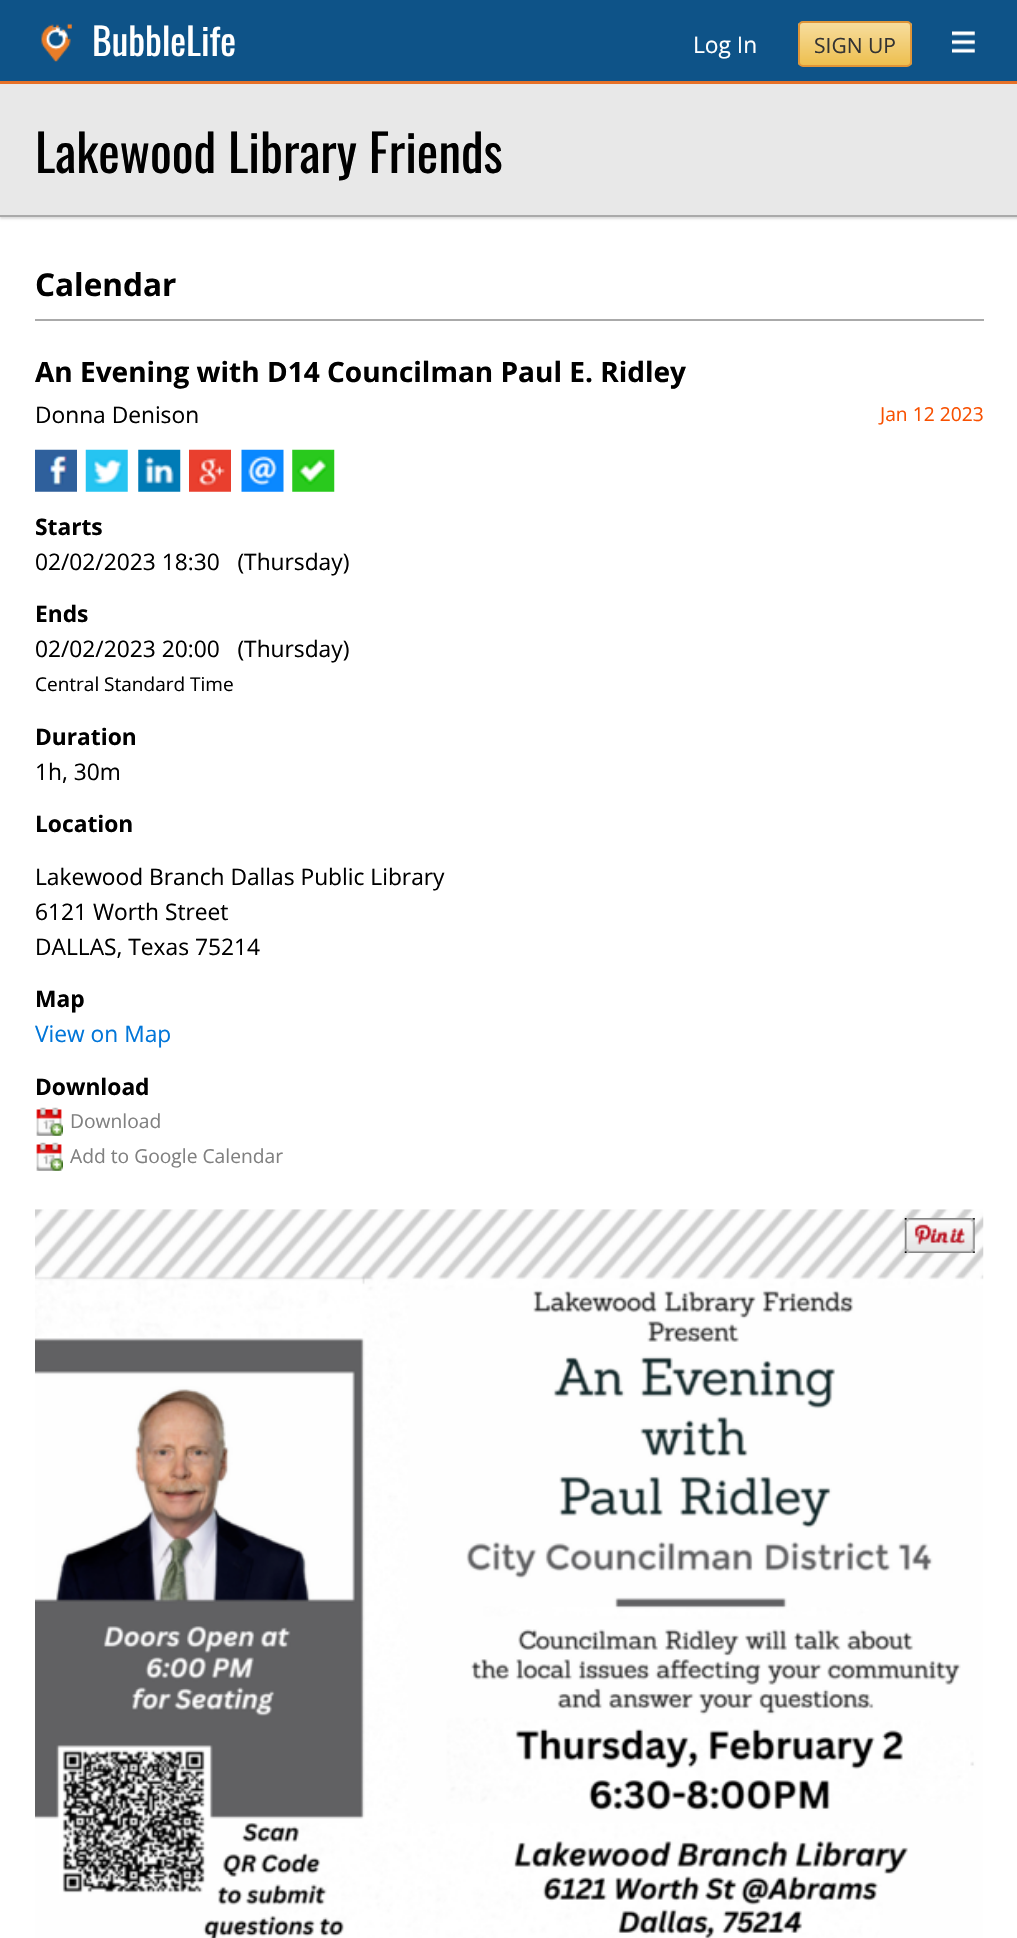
#include "include/core/SkBlurTypes.h"
#include "include/core/SkCanvas.h"
#include "include/core/SkData.h"
#include "include/core/SkFont.h"
#include "include/core/SkFontMgr.h"
#include "include/core/SkImage.h"
#include "include/core/SkMaskFilter.h"
#include "include/core/SkPaint.h"
#include "include/core/SkPathBuilder.h"
#include "include/core/SkTextBlob.h"
#include "include/effects/SkDashPathEffect.h"
#include "include/effects/SkGradientShader.h"
#include "include/utils/SkParsePath.h"

extern sk_sp<SkFontMgr> fontMgr;

void draw(SkCanvas* canvas) {
    SkPaint p;
    p.setAntiAlias(true);
    auto font = [&](const char* family, int weight, float size, bool italic = false) {
        SkFontStyle style(weight, SkFontStyle::kNormal_Width,
            italic ? SkFontStyle::kItalic_Slant : SkFontStyle::kUpright_Slant);
        SkFont result(fontMgr->matchFamilyStyle(family, style), size);
        result.setSubpixel(true);
        return result;
    };
    auto drawPhoto = [&](const char* path, float l, float t, float r, float b) {
        auto image = SkImages::DeferredFromEncodedData(SkData::MakeFromFileName(path));
        canvas->drawImageRect(image, SkRect::MakeLTRB(l, t, r, b), SkSamplingOptions());
    };
    canvas->clear(0xFFFFFFFF);
    p.setColor(0xFF0E5388);
    canvas->drawRect(SkRect::MakeLTRB(0, 0, 1017, 81), p);
    p.setColor(0xFFE67127);
    canvas->drawRect(SkRect::MakeLTRB(0, 81, 1017, 84), p);
    drawPhoto("media/1.png", 41, 23, 72, 62);
    auto font1 = font("Oswald", 400, 37.5f);
    p.setColor(0xFFFFFFFF);
    canvas->drawString("BubbleLife", 92, 56, font1, p);
    auto font2 = font("Open Sans", 400, 22.75f);
    canvas->drawString("Log In", 693, 53, font2, p);
    canvas->save();
    canvas->clipPath(SkPathBuilder().moveTo(803, 21).lineTo(907, 21).cubicTo(910, 21, 912, 23, 912, 26).lineTo(912, 62).cubicTo(912, 65, 910, 67, 907, 67).lineTo(803, 67).cubicTo(800, 67, 798, 65, 798, 62).lineTo(798, 26).cubicTo(798, 23, 800, 21, 803, 21).close().detach(), true);
    {
        const SkColor colors[] = {0xFFF7DD9E, 0xFFEDBF4F};
        const float stops[] = {0, 1};
        const SkPoint ends[] = {{855, 23}, {855, 65}};
        p.setShader(SkGradientShader::MakeLinear(ends, colors, stops, 2, SkTileMode::kClamp));
        p.setAlpha(255);
    }
    canvas->drawRect(SkRect::MakeLTRB(798, 23, 912, 65), p);
    canvas->restore();
    p.setStyle(SkPaint::kStroke_Style);
    p.setStrokeWidth(2);
    p.setShader(nullptr);
    p.setColor(0xFFDF9538);
    canvas->drawRoundRect(SkRect::MakeLTRB(799, 22, 911, 66), 4, 4, p);
    auto font3 = font("Open Sans", 400, 21);
    p.setStyle(SkPaint::kFill_Style);
    p.setColor(0xFF333333);
    canvas->drawString("SIGN UP", 814, 53, font3, p);
    drawPhoto("media/2.png", 952, 31, 975, 53);
    p.setColor(0xFFDDDDDD);
    p.setMaskFilter(SkMaskFilter::MakeBlur(kNormal_SkBlurStyle, 1));
    canvas->drawRect(SkRect::MakeLTRB(0, 86, 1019, 219), p);
    p.setMaskFilter(nullptr);
    p.setColor(0xFFE8E8E8);
    canvas->drawRect(SkRect::MakeLTRB(0, 84, 1017, 215), p);
    p.setColor(0xFFAAAAAA);
    canvas->drawRect(SkRect::MakeLTRB(0, 215, 1017, 217), p);
    auto font4 = font("Oswald", 400, 51.25f);
    p.setColor(0xFF000000);
    canvas->drawString("Lakewood Library Friends", 35, 173, font4, p);
    p.setColor(0xFFAAAAAA);
    canvas->drawRect(SkRect::MakeLTRB(35, 319, 984, 321), p);
    auto font5 = font("Open Sans", 700, 31.5f);
    p.setColor(0xFF000000);
    canvas->drawString("Calendar", 35, 296, font5, p);
    auto font6 = font("Open Sans", 700, 28);
    canvas->drawString("An Evening with D14 Councilman Paul E. Ridley", 35, 382, font6, p);
    canvas->drawString("Donna Denison", 35, 423, font2, p);
    auto font7 = font("Open Sans", 400, 19.25f);
    p.setColor(0xFFF85000);
    canvas->drawString("Jan 12 2023", 880, 421, font7, p);
    drawPhoto("media/3.png", 35, 449, 77, 492);
    drawPhoto("media/4.png", 85, 449, 128, 492);
    drawPhoto("media/5.png", 138, 449, 181, 492);
    drawPhoto("media/6.png", 189, 449, 231, 492);
    drawPhoto("media/7.png", 241, 449, 284, 492);
    drawPhoto("media/8.png", 292, 449, 335, 492);
    auto font8 = font("Open Sans", 700, 22.75f);
    p.setColor(0xFF000000);
    canvas->drawString("Starts", 35, 535, font8, p);
    canvas->drawString("02/02/2023 18:30   (Thursday)", 35, 570, font2, p);
    canvas->drawString("Ends", 35, 622, font8, p);
    canvas->drawString("02/02/2023 20:00   (Thursday)", 35, 657, font2, p);
    auto font9 = font("Open Sans", 400, 19);
    canvas->drawString("Central Standard Time", 35, 691, font9, p);
    canvas->drawString("Duration", 35, 745, font8, p);
    canvas->drawString("1h, 30m", 35, 780, font2, p);
    canvas->drawString("Location", 35, 832, font8, p);
    {
        const struct { const char* s; float x, y; } items[] = {
            {"Lakewood Branch Dallas Public Library", 35, 885},
            {"6121 Worth Street", 35, 920},
            {"DALLAS, Texas 75214", 35, 955},
        };
        for (auto [s, x, y] : items) {
            canvas->drawString(s, x, y, font2, p);
        }
    }
    canvas->drawString("Map", 35, 1007, font8, p);
    p.setColor(0xFF0176D9);
    canvas->drawString("View on Map", 35, 1042, font2, p);
    p.setColor(0xFF000000);
    canvas->drawString("Download", 35, 1095, font8, p);
    drawPhoto("media/9.png", 36, 1107, 63, 1136);
    p.setColor(0xFF808080);
    canvas->drawString("Download", 70, 1128, font7, p);
    drawPhoto("media/9.png", 36, 1142, 63, 1171);
    canvas->drawString("Add to Google Calendar", 70, 1163, font7, p);
    drawPhoto("media/10.png", 35, 1209, 984, 1938);
    drawPhoto("media/11.png", 904, 1218, 975, 1253);
}
